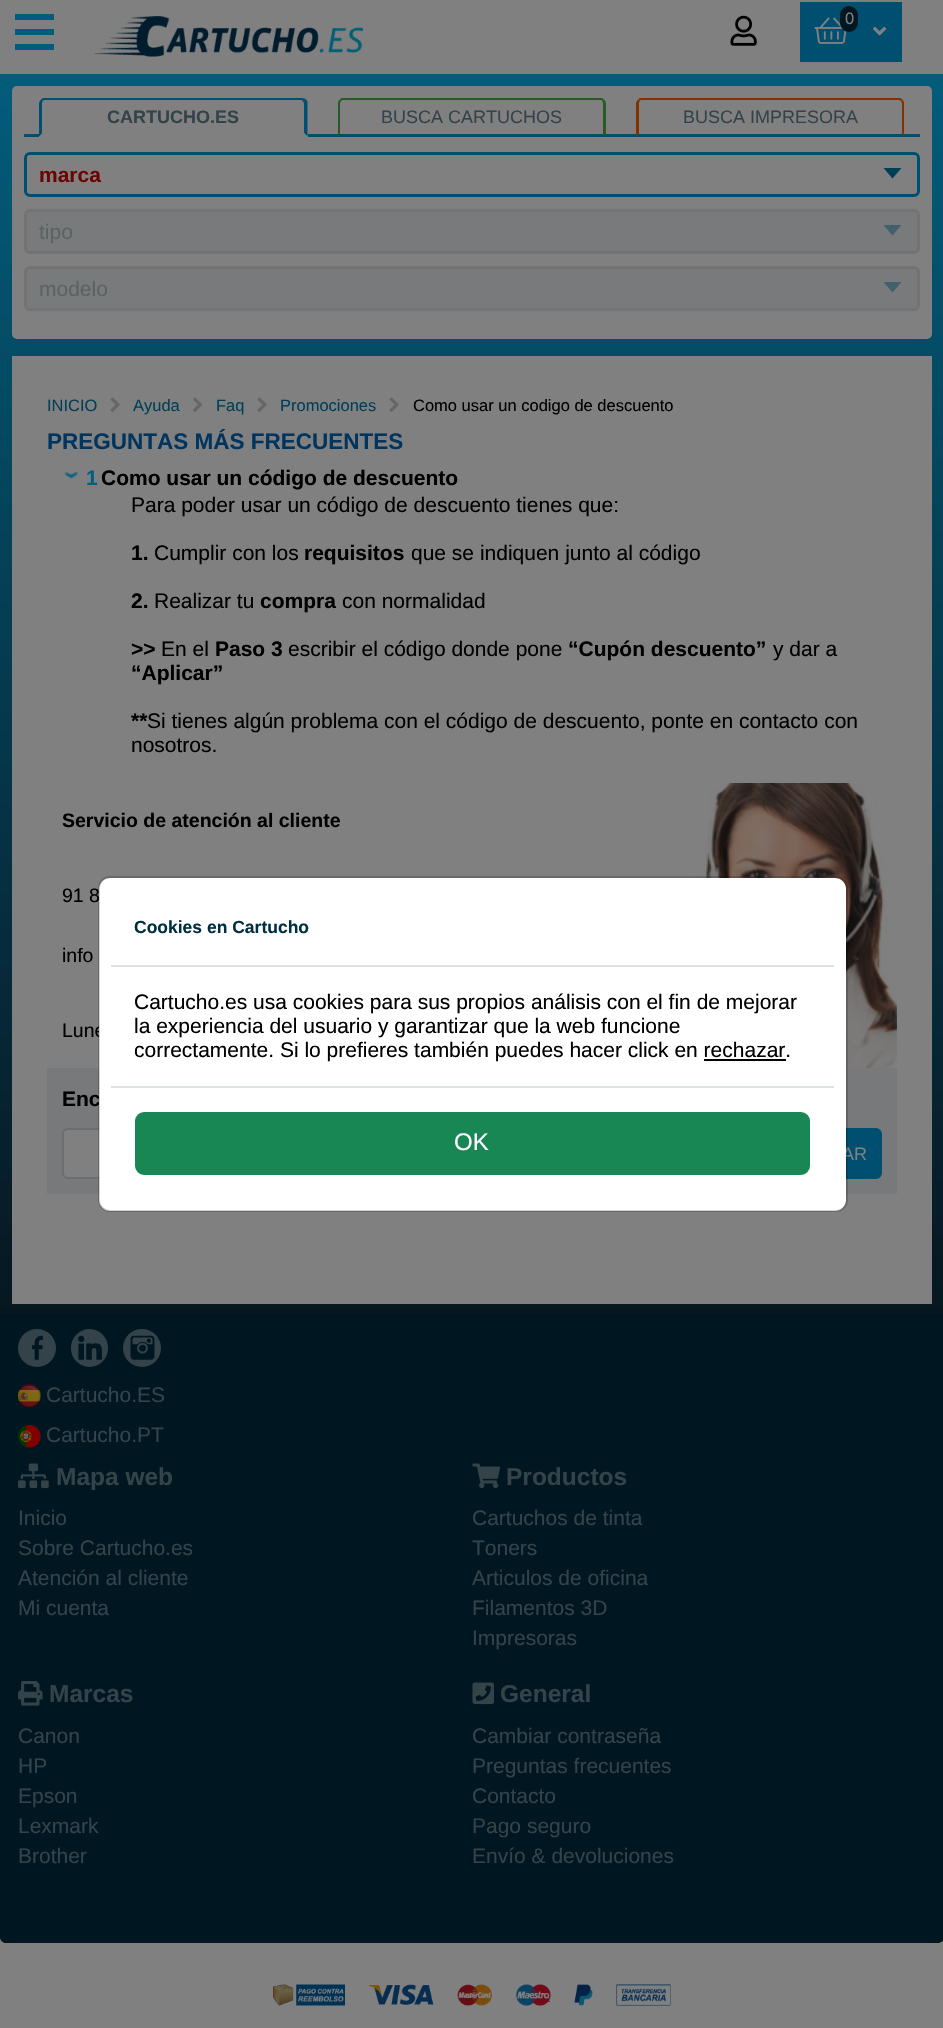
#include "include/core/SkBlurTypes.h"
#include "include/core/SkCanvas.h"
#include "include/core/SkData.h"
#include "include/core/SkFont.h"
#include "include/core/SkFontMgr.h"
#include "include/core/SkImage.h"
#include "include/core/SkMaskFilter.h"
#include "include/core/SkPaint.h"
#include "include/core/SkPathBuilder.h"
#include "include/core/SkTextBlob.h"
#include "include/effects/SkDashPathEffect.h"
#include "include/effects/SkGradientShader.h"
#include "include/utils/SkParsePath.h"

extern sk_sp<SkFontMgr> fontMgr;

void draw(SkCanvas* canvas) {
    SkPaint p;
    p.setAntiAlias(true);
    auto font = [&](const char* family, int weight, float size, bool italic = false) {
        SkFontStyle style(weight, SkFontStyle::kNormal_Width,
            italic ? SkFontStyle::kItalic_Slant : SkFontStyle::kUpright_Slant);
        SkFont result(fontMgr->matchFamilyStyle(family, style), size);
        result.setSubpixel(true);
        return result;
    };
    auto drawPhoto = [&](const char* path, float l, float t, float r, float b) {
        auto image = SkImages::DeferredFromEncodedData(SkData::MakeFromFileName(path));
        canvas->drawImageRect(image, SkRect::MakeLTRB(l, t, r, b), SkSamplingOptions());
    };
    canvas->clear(0xFF808080);
    {
        const struct { float l, t, r, b; SkColor color; } items[] = {
            {15, 29, 54, 35, 0xFF015C7B},
            {15, 14, 54, 20, 0xFF015C7B},
            {15, 44, 54, 50, 0xFF015C7B},
        };
        for (auto [l, t, r, b, color] : items) {
            p.setColor(color);
            canvas->drawRect(SkRect::MakeLTRB(l, t, r, b), p);
        }
    }
    drawPhoto("media/1.png", 94, 16, 363, 57);
    drawPhoto("media/2.png", 730, 15, 757, 46);
    p.setColor(0xFF004F70);
    canvas->drawRect(SkRect::MakeLTRB(800, 2, 902, 62), p);
    drawPhoto("media/3.png", 814, 17, 847, 44);
    p.setColor(0xFF001721);
    canvas->drawRoundRect(SkRect::MakeLTRB(840, 6, 858, 32), 9, 9, p);
    auto font1 = font("Liberation Sans", 400, 16.5f);
    p.setColor(0xFF808080);
    canvas->drawString("0", 845, 24, font1, p);
    drawPhoto("media/4.png", 873, 26, 887, 36);
    {
        const SkColor colors[] = {0xFF035C7B, 0xFF071720};
        const float stops[] = {0, 1};
        const SkPoint ends[] = {{472, 73}, {472, 1316}};
        p.setShader(SkGradientShader::MakeLinear(ends, colors, stops, 2, SkTileMode::kClamp));
        p.setAlpha(255);
    }
    canvas->drawRect(SkRect::MakeLTRB(0, 74, 943, 1314), p);
    p.setShader(nullptr);
    p.setColor(0xFF808080);
    canvas->drawRoundRect(SkRect::MakeLTRB(12, 86, 932, 339), 5, 5, p);
    p.setColor(0xFF004F70);
    canvas->drawRect(SkRect::MakeLTRB(24, 134, 920, 137), p);
    p.setColor(0xFF808080);
    canvas->drawPath(SkPathBuilder().moveTo(45, 98).lineTo(302, 98).cubicTo(305.5f, 98, 308, 100.5f, 308, 104).lineTo(308, 137).lineTo(39, 137).lineTo(39, 104).cubicTo(39, 100.5f, 41.5f, 98, 45, 98).close().detach(), p);
    p.setColor(0xFF004F70);
    canvas->drawPath(SkPathBuilder().moveTo(45, 98).cubicTo(44, 98, 42, 98, 41, 99).lineTo(43, 101).lineTo(44, 100).lineTo(302, 100).lineTo(303, 102).lineTo(306, 99).lineTo(302, 98).close().detach(), p);
    canvas->drawPath(SkPathBuilder().moveTo(306, 99).lineTo(307.5f, 101.5f).lineTo(307.5f, 136).lineTo(307, 136).lineTo(304, 133).lineTo(304, 104).lineTo(303.5f, 101.5f).close().detach(), p);
    p.setColor(0xFF808080);
    canvas->drawPath(SkPathBuilder().moveTo(307, 136).lineTo(40, 136).lineTo(42, 134).lineTo(304, 134).lineTo(304, 133).close().detach(), p);
    p.setColor(0xFF004F70);
    canvas->drawPath(SkPathBuilder().moveTo(39, 104).lineTo(39, 136).lineTo(39.5f, 136).lineTo(42, 133.5f).lineTo(42, 104).cubicTo(42, 103, 42, 102, 43, 101).lineTo(41, 99.5f).cubicTo(40, 100.5f, 39, 102, 39, 104).close().detach(), p);
    auto font2 = font("Liberation Sans", 700, 18);
    p.setColor(0xFF334349);
    canvas->drawString("CARTUCHO.ES", 107, 123, font2, p);
    p.setColor(0xFF275B25);
    canvas->drawPath(SkPathBuilder().moveTo(344, 98).cubicTo(342, 98, 340, 98, 340, 100).lineTo(341, 101).cubicTo(342, 100, 343, 100, 344, 100).lineTo(600, 100).cubicTo(601, 100, 602, 100, 602, 101).lineTo(604, 99).cubicTo(603, 98, 601, 98, 600, 98).close().detach(), p);
    canvas->drawPath(SkPathBuilder().moveTo(604, 99.5f).cubicTo(605, 100.5f, 606, 102, 606, 104).lineTo(606, 136).lineTo(605.5f, 136).lineTo(603, 133.5f).lineTo(603, 104).cubicTo(603, 103, 603, 102, 602, 101).close().detach(), p);
    canvas->drawPath(SkPathBuilder().moveTo(339.5f, 99.5f).cubicTo(338.5f, 100.5f, 338, 102, 338, 104).lineTo(338, 136).lineTo(340, 134).lineTo(340, 104).cubicTo(340, 103, 340.5f, 102, 341, 101).close().detach(), p);
    auto font3 = font("Liberation Sans", 400, 18);
    p.setColor(0xFF334349);
    canvas->drawString("BUSCA CARTUCHOS", 381, 123, font3, p);
    p.setColor(0xFF803300);
    canvas->drawPath(SkPathBuilder().moveTo(642, 98).cubicTo(641, 98, 639, 98, 638, 99).lineTo(640, 101).cubicTo(640, 100, 641, 100, 642, 100).lineTo(898, 100).cubicTo(899, 100, 900, 100, 901, 101).lineTo(902, 100).cubicTo(902, 98, 900, 98, 898, 98).close().detach(), p);
    canvas->drawPath(SkPathBuilder().moveTo(904, 136).lineTo(904, 104).cubicTo(904, 102, 903.5f, 100.5f, 902.5f, 99.5f).lineTo(901, 101).cubicTo(901.5f, 102, 902, 103, 902, 104).lineTo(902, 134).close().detach(), p);
    canvas->drawPath(SkPathBuilder().moveTo(636, 104).lineTo(636, 136).lineTo(636.5f, 136).lineTo(639, 133.5f).lineTo(639, 104).cubicTo(639, 103, 639, 102, 640, 101).lineTo(638, 99.5f).cubicTo(637, 100.5f, 636, 102, 636, 104).close().detach(), p);
    p.setColor(0xFF334349);
    canvas->drawString("BUSCA IMPRESORA", 683, 123, font3, p);
    p.setStyle(SkPaint::kStroke_Style);
    p.setStrokeWidth(3);
    p.setColor(0xFF004F70);
    canvas->drawRoundRect(SkRect::MakeLTRB(25.5f, 153.5f, 918.5f, 195.5f), 4.5f, 4.5f, p);
    auto font4 = font("Liberation Sans", 700, 21);
    p.setStyle(SkPaint::kFill_Style);
    p.setColor(0xFF6A0502);
    canvas->drawString("marca", 39, 182, font4, p);
    p.setColor(0xFF013F56);
    canvas->drawPath(SkPathBuilder().moveTo(883.5f, 168).lineTo(901.5f, 168).lineTo(892.5f, 178.5f).close().detach(), p);
    p.setColor(0xFF797A7B);
    canvas->drawRoundRect(SkRect::MakeLTRB(25.5f, 210.5f, 918.5f, 252.5f), 4.5f, 4.5f, p);
    p.setStyle(SkPaint::kStroke_Style);
    p.setColor(0xFF737373);
    canvas->drawRoundRect(SkRect::MakeLTRB(25.5f, 210.5f, 918.5f, 252.5f), 4.5f, 4.5f, p);
    auto font5 = font("Liberation Sans", 400, 21);
    p.setStyle(SkPaint::kFill_Style);
    p.setColor(0xFF5A6264);
    canvas->drawString("tipo", 39, 239, font5, p);
    p.setColor(0xFF40606B);
    canvas->drawPath(SkPathBuilder().moveTo(883.5f, 225).lineTo(901.5f, 225).lineTo(892.5f, 235.5f).close().detach(), p);
    p.setColor(0xFF797A7B);
    canvas->drawRoundRect(SkRect::MakeLTRB(25.5f, 267.5f, 918.5f, 309.5f), 4.5f, 4.5f, p);
    p.setStyle(SkPaint::kStroke_Style);
    p.setColor(0xFF737373);
    canvas->drawRoundRect(SkRect::MakeLTRB(25.5f, 267.5f, 918.5f, 309.5f), 4.5f, 4.5f, p);
    p.setStyle(SkPaint::kFill_Style);
    p.setColor(0xFF5A6264);
    canvas->drawString("modelo", 39, 296, font5, p);
    p.setColor(0xFF40606B);
    canvas->drawPath(SkPathBuilder().moveTo(883.5f, 282).lineTo(901.5f, 282).lineTo(892.5f, 292.5f).close().detach(), p);
    p.setColor(0xFF808080);
    canvas->drawRect(SkRect::MakeLTRB(12, 356, 932, 1304), p);
    p.setColor(0xFF013F56);
    canvas->drawString("INICIO", 47, 411, font1, p);
    drawPhoto("media/5.png", 110, 397, 120, 412);
    canvas->drawString("Ayuda", 133, 411, font1, p);
    drawPhoto("media/6.png", 193, 397, 203, 412);
    canvas->drawString("Faq", 216, 411, font1, p);
    drawPhoto("media/5.png", 257, 397, 267, 412);
    canvas->drawString("Promociones", 280, 411, font1, p);
    drawPhoto("media/5.png", 389, 397, 399, 412);
    p.setColor(0xFF000000);
    canvas->drawString("Como usar un codigo de descuento", 413, 411, font1, p);
    auto font6 = font("Liberation Sans", 700, 22.5f);
    p.setColor(0xFF00355F);
    canvas->drawString("PREGUNTAS MÁS FRECUENTES", 47, 449, font6, p);
    drawPhoto("media/7.png", 64, 471, 78, 479);
    p.setColor(0xFF025F7F);
    canvas->drawString("1", 86, 485, font4, p);
    p.setColor(0xFF000000);
    canvas->drawString("Como usar un código de descuento", 101, 485, font4, p);
    canvas->drawString("Para poder usar un código de descuento tienes que:", 131, 512, font5, p);
    canvas->drawString("1.", 131, 560, font4, p);
    canvas->drawString("Cumplir con los", 154, 560, font5, p);
    canvas->drawString("requisitos", 304, 560, font4, p);
    canvas->drawString("que se indiquen junto al código", 411, 560, font5, p);
    canvas->drawString("2.", 131, 608, font4, p);
    canvas->drawString("Realizar tu", 154, 608, font5, p);
    canvas->drawString("compra", 260, 608, font4, p);
    canvas->drawString("con normalidad", 342, 608, font5, p);
    canvas->drawString(">>", 131, 656, font4, p);
    canvas->drawString("En el", 161, 656, font5, p);
    canvas->drawString("Paso 3", 215, 656, font4, p);
    canvas->drawString("escribir el código donde pone", 288, 656, font5, p);
    canvas->drawString("“Cupón descuento”", 568, 656, font4, p);
    canvas->drawString("y dar a", 773, 656, font5, p);
    canvas->drawString("“Aplicar”", 131, 680, font4, p);
    canvas->drawString("**", 131, 728, font4, p);
    canvas->drawString("Si tienes algún problema con el código de descuento, ponte en contacto con", 147, 728, font5, p);
    canvas->drawString("nosotros.", 131, 752, font5, p);
    drawPhoto("media/8.png", 684, 783, 897, 1068);
    auto font7 = font("Liberation Sans", 700, 19.5f);
    canvas->drawString("Servicio de atención al cliente", 62, 827, font7, p);
    auto font8 = font("Liberation Sans", 400, 19.5f);
    {
        const struct { const char* s; float x, y; } items[] = {
            {"91 8", 62, 902},
            {"info", 62, 962},
            {"Lune", 62, 1037},
        };
        for (auto [s, x, y] : items) {
            canvas->drawString(s, x, y, font8, p);
        }
    }
    p.setColor(0xFF78797A);
    canvas->drawRect(SkRect::MakeLTRB(47, 1068, 897, 1194), p);
    p.setColor(0xFF000000);
    canvas->drawString("Enc", 62, 1106, font4, p);
    p.setColor(0xFF808080);
    canvas->drawRoundRect(SkRect::MakeLTRB(63, 1129, 353, 1178), 5, 5, p);
    p.setStyle(SkPaint::kStroke_Style);
    p.setStrokeWidth(2);
    p.setColor(0xFF6D6D6D);
    canvas->drawRoundRect(SkRect::MakeLTRB(63, 1129, 353, 1178), 5, 5, p);
    p.setStyle(SkPaint::kFill_Style);
    p.setColor(0xFF004F70);
    canvas->drawRoundRect(SkRect::MakeLTRB(777, 1128, 882, 1179), 6, 6, p);
    p.setColor(0xFF808080);
    canvas->drawString("AR", 842, 1160, font3, p);
    p.setColor(0xFF001721);
    canvas->drawPath(SkPathBuilder().moveTo(0, 1314).lineTo(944, 1314).lineTo(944, 1937).cubicTo(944, 1940.5f, 941.5f, 1943, 938, 1943).lineTo(6, 1943).cubicTo(2.5f, 1943, 0, 1940.5f, 0, 1937).close().detach(), p);
    p.setColor(0xFF334349);
    canvas->drawCircle(37, 1348, 19, p);
    drawPhoto("media/9.png", 32, 1335, 43, 1360);
    canvas->drawRoundRect(SkRect::MakeLTRB(71, 1329, 108, 1367), 18.5f, 18.5f, p);
    drawPhoto("media/10.png", 78, 1335, 102, 1360);
    canvas->drawCircle(142, 1348, 19, p);
    drawPhoto("media/11.png", 130, 1335, 155, 1360);
    drawPhoto("media/12.png", 18, 1384, 41, 1407);
    canvas->drawString("Cartucho.ES", 46, 1402, font5, p);
    drawPhoto("media/13.png", 18, 1425, 41, 1448);
    canvas->drawString("Cartucho.PT", 46, 1442, font5, p);
    drawPhoto("media/14.png", 18, 1463, 49, 1489);
    auto font9 = font("Liberation Sans", 700, 24.5f);
    canvas->drawString("Mapa web", 56, 1485, font9, p);
    {
        const struct { const char* s; float x, y; } items[] = {
            {"Inicio", 18, 1525},
            {"Sobre Cartucho.es", 18, 1555},
            {"Atención al cliente", 18, 1585},
            {"Mi cuenta", 18, 1615},
        };
        for (auto [s, x, y] : items) {
            canvas->drawString(s, x, y, font5, p);
        }
    }
    drawPhoto("media/15.png", 472, 1463, 501, 1488);
    canvas->drawString("Productos", 506, 1485, font9, p);
    {
        const struct { const char* s; float x, y; } items[] = {
            {"Cartuchos de tinta", 472, 1525},
            {"Toners", 472, 1555},
            {"Articulos de oficina", 472, 1585},
            {"Filamentos 3D", 472, 1615},
            {"Impresoras", 472, 1645},
        };
        for (auto [s, x, y] : items) {
            canvas->drawString(s, x, y, font5, p);
        }
    }
    drawPhoto("media/16.png", 18, 1681, 43, 1706);
    canvas->drawString("Marcas", 49, 1702, font9, p);
    {
        const struct { const char* s; float x, y; } items[] = {
            {"Canon", 18, 1743},
            {"HP", 18, 1773},
            {"Epson", 18, 1803},
            {"Lexmark", 18, 1833},
            {"Brother", 18, 1863},
        };
        for (auto [s, x, y] : items) {
            canvas->drawString(s, x, y, font5, p);
        }
    }
    drawPhoto("media/17.png", 472, 1682, 494, 1705);
    canvas->drawString("General", 500, 1702, font9, p);
    {
        const struct { const char* s; float x, y; } items[] = {
            {"Cambiar contraseña", 472, 1743},
            {"Preguntas frecuentes", 472, 1773},
            {"Contacto", 472, 1803},
            {"Pago seguro", 472, 1833},
            {"Envío & devoluciones", 472, 1863},
        };
        for (auto [s, x, y] : items) {
            canvas->drawString(s, x, y, font5, p);
        }
    }
    drawPhoto("media/18.png", 273, 1984, 345, 2006);
    drawPhoto("media/19.png", 369, 1984, 434, 2005);
    drawPhoto("media/20.png", 457, 1984, 492, 2006);
    drawPhoto("media/21.png", 516, 1984, 551, 2006);
    drawPhoto("media/22.png", 574, 1984, 593, 2006);
    drawPhoto("media/23.png", 616, 1984, 671, 2006);
    p.setColor(0xFFFFFFFF);
    canvas->drawRoundRect(SkRect::MakeLTRB(99, 878, 846, 1211), 11, 11, p);
    p.setStyle(SkPaint::kStroke_Style);
    p.setColor(0x2E000000);
    canvas->drawRoundRect(SkRect::MakeLTRB(99, 877, 847, 1211), 11, 11, p);
    p.setStyle(SkPaint::kFill_Style);
    p.setColor(0xFFDEE2E6);
    canvas->drawRect(SkRect::MakeLTRB(111, 965, 834, 967), p);
    auto font10 = font("Liberation Sans", 700, 17.5f);
    p.setColor(0xFF002E42);
    canvas->drawString("Cookies en Cartucho", 134, 933, font10, p);
    p.setColor(0xFF000000);
    {
        const struct { const char* s; float x, y; } items[] = {
            {"Cartucho.es usa cookies para sus propios análisis con el fin de mejorar", 134, 1009},
            {"la experiencia del usuario y garantizar que la web funcione", 134, 1033},
            {"correctamente. Si lo prefieres también puedes hacer click en rechazar.", 134, 1057},
        };
        for (auto [s, x, y] : items) {
            canvas->drawString(s, x, y, font5, p);
        }
    }
    canvas->drawRect(SkRect::MakeLTRB(704, 1059, 786, 1061), p);
    p.setColor(0xFFDEE2E6);
    canvas->drawRect(SkRect::MakeLTRB(111, 1086, 834, 1088), p);
    p.setColor(0xFF198754);
    canvas->drawRoundRect(SkRect::MakeLTRB(136, 1113, 809, 1174), 8, 8, p);
    p.setStyle(SkPaint::kStroke_Style);
    canvas->drawRoundRect(SkRect::MakeLTRB(136, 1113, 809, 1174), 8, 8, p);
    auto font11 = font("Liberation Sans", 400, 24);
    p.setStyle(SkPaint::kFill_Style);
    p.setColor(0xFFFFFFFF);
    canvas->drawString("OK", 454, 1150, font11, p);
}
